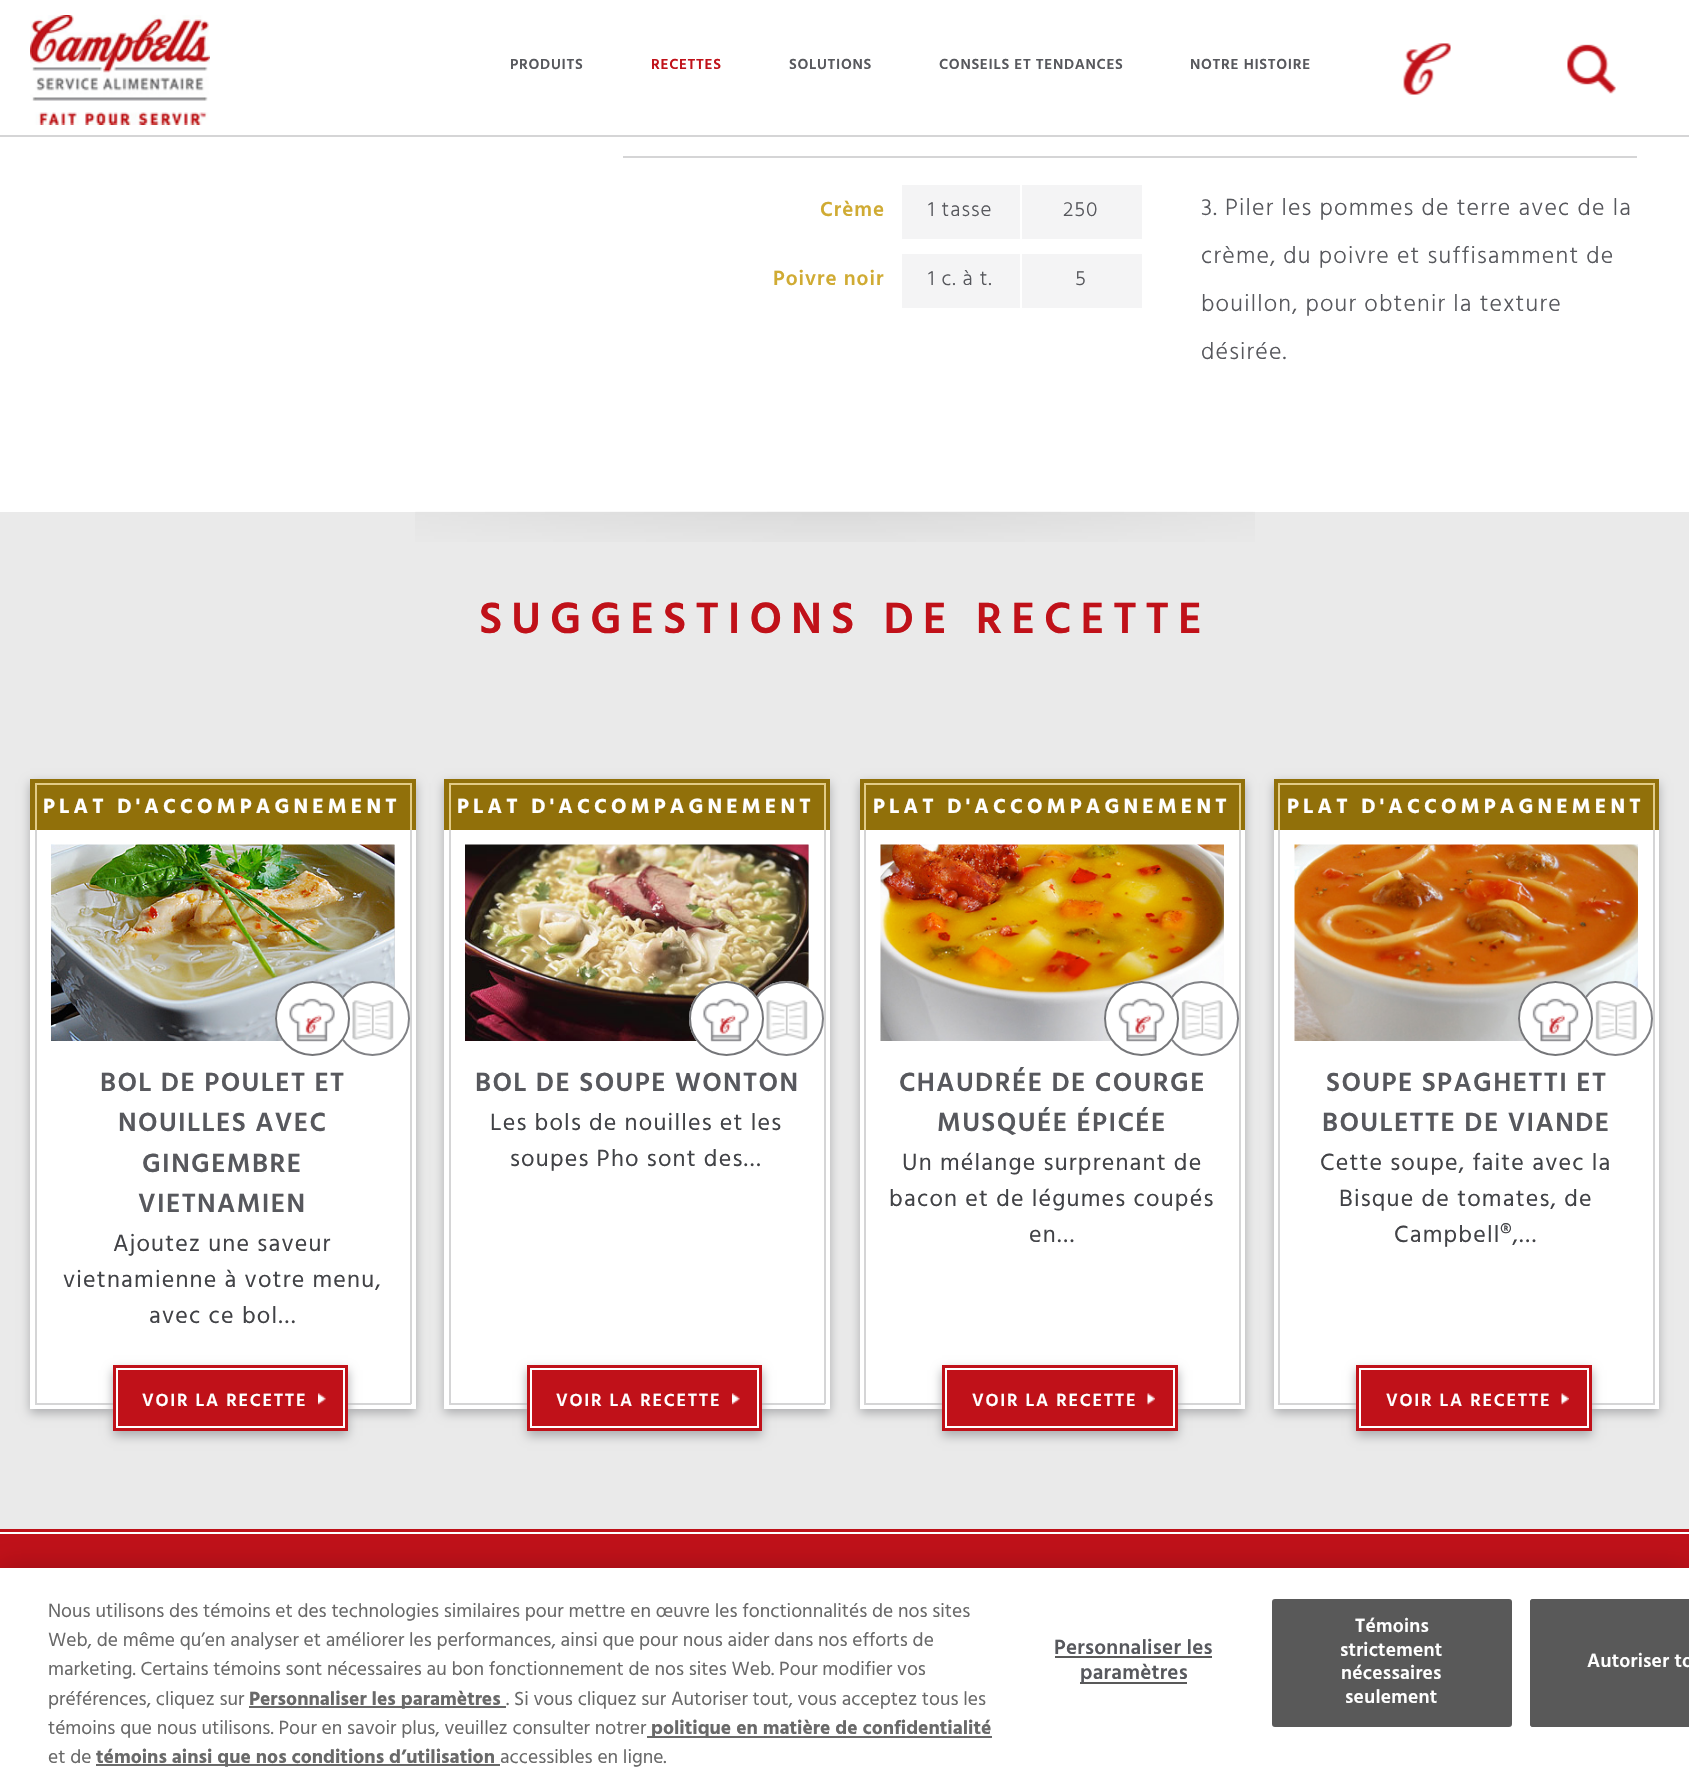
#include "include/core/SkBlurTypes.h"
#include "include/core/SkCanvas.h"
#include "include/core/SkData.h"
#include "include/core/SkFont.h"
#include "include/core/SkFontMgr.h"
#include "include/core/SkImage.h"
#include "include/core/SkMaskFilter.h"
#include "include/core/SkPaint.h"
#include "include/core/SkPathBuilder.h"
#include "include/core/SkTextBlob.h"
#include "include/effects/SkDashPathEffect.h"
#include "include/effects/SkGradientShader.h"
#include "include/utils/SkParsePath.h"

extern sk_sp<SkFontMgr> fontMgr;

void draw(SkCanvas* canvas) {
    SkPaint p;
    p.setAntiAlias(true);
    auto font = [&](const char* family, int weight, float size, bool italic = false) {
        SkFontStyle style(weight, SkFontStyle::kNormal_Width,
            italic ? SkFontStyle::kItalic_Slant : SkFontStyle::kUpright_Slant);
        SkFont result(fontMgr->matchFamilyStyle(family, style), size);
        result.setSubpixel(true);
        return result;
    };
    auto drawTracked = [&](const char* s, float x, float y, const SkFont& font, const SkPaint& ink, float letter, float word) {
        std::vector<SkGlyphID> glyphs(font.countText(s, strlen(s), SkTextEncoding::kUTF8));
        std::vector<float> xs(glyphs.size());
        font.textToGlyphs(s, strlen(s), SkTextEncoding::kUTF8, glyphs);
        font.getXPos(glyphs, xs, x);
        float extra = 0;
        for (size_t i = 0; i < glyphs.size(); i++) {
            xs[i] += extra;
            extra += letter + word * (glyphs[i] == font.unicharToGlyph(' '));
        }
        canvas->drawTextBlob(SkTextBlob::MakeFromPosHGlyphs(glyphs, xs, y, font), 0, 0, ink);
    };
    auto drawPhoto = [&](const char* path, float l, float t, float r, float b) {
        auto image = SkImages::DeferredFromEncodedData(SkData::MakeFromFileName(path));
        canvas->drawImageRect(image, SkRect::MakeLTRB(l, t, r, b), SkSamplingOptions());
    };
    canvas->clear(0xFFFFFFFF);
    drawPhoto("media/1.png", 30, 15, 210, 125);
    auto font1 = font("Hind", 600, 15);
    p.setColor(0xFF57585D);
    drawTracked("PRODUITS", 510, 69, font1, p, 0.7f, 0);
    p.setColor(0xFFC01119);
    drawTracked("RECETTES", 651, 69, font1, p, 0.7f, 0);
    p.setColor(0xFF57585D);
    {
        const struct { const char* s; float x, y; } items[] = {
            {"SOLUTIONS", 789, 69},
            {"CONSEILS ET TENDANCES", 939, 69},
            {"NOTRE HISTOIRE", 1190, 69},
        };
        for (auto [s, x, y] : items) {
            drawTracked(s, x, y, font1, p, 0.7f, 0);
        }
    }
    drawPhoto("media/2.png", 1403, 43, 1451, 95);
    drawPhoto("media/3.png", 1567, 44, 1616, 94);
    p.setColor(0xFFD5D5D6);
    canvas->drawRect(SkRect::MakeLTRB(0, 135, 1689, 137), p);
    canvas->drawRect(SkRect::MakeLTRB(623, 156, 1637, 158), p);
    auto font2 = font("Hind", 600, 21);
    p.setColor(0xFFD0AB33);
    drawTracked("Crème", 820, 216, font2, p, 1, 0);
    p.setColor(0xFFF4F4F5);
    canvas->drawRect(SkRect::MakeLTRB(902, 185, 1020, 239), p);
    auto font3 = font("Hind", 300, 21);
    p.setColor(0xFF57585D);
    drawTracked("1 tasse", 928, 216, font3, p, 1, 0);
    p.setColor(0xFFF4F4F5);
    canvas->drawRect(SkRect::MakeLTRB(1022, 185, 1142, 239), p);
    p.setColor(0xFF57585D);
    drawTracked("250", 1063, 216, font3, p, 1, 0);
    p.setColor(0xFFD0AB33);
    drawTracked("Poivre noir", 773, 285, font2, p, 1, 0);
    p.setColor(0xFFF4F4F5);
    canvas->drawRect(SkRect::MakeLTRB(902, 254, 1020, 308), p);
    p.setColor(0xFF57585D);
    drawTracked("1 c. à t.", 928, 285, font3, p, 1, 0);
    p.setColor(0xFFF4F4F5);
    canvas->drawRect(SkRect::MakeLTRB(1022, 254, 1142, 308), p);
    p.setColor(0xFF57585D);
    drawTracked("5", 1075, 285, font3, p, 1, 0);
    auto font4 = font("Hind", 300, 24);
    {
        const struct { const char* s; float x, y; } items[] = {
            {"3. Piler les pommes de terre avec de la", 1201, 215},
            {"crème, du poivre et suffisamment de", 1201, 263},
            {"bouillon, pour obtenir la texture", 1201, 311},
            {"désirée.", 1201, 359},
        };
        for (auto [s, x, y] : items) {
            drawTracked(s, x, y, font4, p, 1.2f, 0);
        }
    }
    p.setColor(0xFFEAEAEA);
    canvas->drawRect(SkRect::MakeLTRB(0, 512, 1689, 1529), p);
    drawPhoto("media/4.png", 415, 511, 1255, 542);
    auto font5 = font("Hind", 600, 45);
    p.setColor(0xFFC01119);
    drawTracked("SUGGESTIONS DE RECETTE", 479, 633, font5, p, 9, 0);
    p.setColor(0xFFABACAE);
    p.setMaskFilter(SkMaskFilter::MakeBlur(kNormal_SkBlurStyle, 5));
    canvas->drawRect(SkRect::MakeLTRB(30, 783, 416, 1413), p);
    p.setMaskFilter(nullptr);
    {
        const struct { float l, t, r, b; SkColor color; } items[] = {
            {30, 830, 416, 1409, 0xFFFFFFFF},
            {30, 779, 416, 830, 0xFF91700A},
            {35, 783, 411, 785, 0xFFE2CB86},
            {410, 783, 412, 830, 0xFFE2CB86},
            {35, 783, 37, 830, 0xFFE2CB86},
        };
        for (auto [l, t, r, b, color] : items) {
            p.setColor(color);
            canvas->drawRect(SkRect::MakeLTRB(l, t, r, b), p);
        }
    }
    auto font6 = font("Hind", 700, 21);
    p.setColor(0xFFFFFFFF);
    drawTracked("PLAT D'ACCOMPAGNEMENT", 43, 813, font6, p, 4.2f, 0);
    {
        const struct { float l, t, r, b; SkColor color; } items[] = {
            {410, 830, 412, 1404, 0xFFD5D5D6},
            {35, 1403, 411, 1405, 0xFFD5D5D6},
            {35, 830, 37, 1404, 0xFFD5D5D6},
            {394, 845, 395, 989, 0xFFD5D5D6},
        };
        for (auto [l, t, r, b, color] : items) {
            p.setColor(color);
            canvas->drawRect(SkRect::MakeLTRB(l, t, r, b), p);
        }
    }
    drawPhoto("media/5.png", 51, 844, 395, 1041);
    p.setColor(0xFFFFFFFF);
    canvas->drawCircle(372.5f, 1018.5f, 37.5f, p);
    drawPhoto("media/7.png", 352, 1000, 394, 1040);
    p.setStyle(SkPaint::kStroke_Style);
    p.setStrokeWidth(2);
    p.setColor(0xFF818286);
    canvas->drawCircle(372.5f, 1018.5f, 36.5f, p);
    p.setStyle(SkPaint::kFill_Style);
    p.setColor(0xFFFFFFFF);
    canvas->drawCircle(312.5f, 1018.5f, 37.5f, p);
    drawPhoto("media/6.png", 289, 998, 335, 1042);
    p.setStyle(SkPaint::kStroke_Style);
    p.setColor(0xFF747578);
    canvas->drawCircle(312.5f, 1018.5f, 36.5f, p);
    auto font7 = font("Hind", 600, 27);
    p.setStyle(SkPaint::kFill_Style);
    p.setColor(0xFF57585D);
    {
        const struct { const char* s; float x, y; } items[] = {
            {"BOL DE POULET ET", 100, 1091},
            {"NOUILLES AVEC", 118, 1131},
            {"GINGEMBRE", 142, 1172},
            {"VIETNAMIEN", 138, 1212},
        };
        for (auto [s, x, y] : items) {
            drawTracked(s, x, y, font7, p, 1.4f, 0);
        }
    }
    auto font8 = font("Hind", 400, 24);
    p.setColor(0xFF414246);
    {
        const struct { const char* s; float x, y; } items[] = {
            {"Ajoutez une saveur", 113, 1251},
            {"vietnamienne à votre menu,", 63, 1287},
            {"avec ce bol…", 149, 1323},
        };
        for (auto [s, x, y] : items) {
            drawTracked(s, x, y, font8, p, 1.2f, 0);
        }
    }
    p.setColor(0xFFABACAE);
    p.setMaskFilter(SkMaskFilter::MakeBlur(kNormal_SkBlurStyle, 5));
    canvas->drawRect(SkRect::MakeLTRB(113, 1370, 348, 1436), p);
    p.setMaskFilter(nullptr);
    p.setColor(0xFFC01119);
    canvas->drawRect(SkRect::MakeLTRB(113, 1365, 348, 1431), p);
    drawPhoto("media/8.png", 318, 1393, 326, 1405);
    p.setStyle(SkPaint::kStroke_Style);
    p.setColor(0xFFFFFFFF);
    canvas->drawRect(SkRect::MakeLTRB(117, 1369, 344, 1427), p);
    auto font9 = font("Hind", 600, 18);
    p.setStyle(SkPaint::kFill_Style);
    drawTracked("VOIR LA RECETTE", 142, 1406, font9, p, 1.75f, 0);
    p.setColor(0xFFABACAE);
    p.setMaskFilter(SkMaskFilter::MakeBlur(kNormal_SkBlurStyle, 5));
    canvas->drawRect(SkRect::MakeLTRB(444, 783, 830, 1413), p);
    p.setMaskFilter(nullptr);
    {
        const struct { float l, t, r, b; SkColor color; } items[] = {
            {444, 830, 830, 1409, 0xFFFFFFFF},
            {444, 779, 830, 830, 0xFF91700A},
            {449, 783, 825, 785, 0xFFE2CB86},
            {824, 783, 826, 830, 0xFFE2CB86},
            {449, 783, 451, 830, 0xFFE2CB86},
        };
        for (auto [l, t, r, b, color] : items) {
            p.setColor(color);
            canvas->drawRect(SkRect::MakeLTRB(l, t, r, b), p);
        }
    }
    p.setColor(0xFFFFFFFF);
    drawTracked("PLAT D'ACCOMPAGNEMENT", 457, 813, font6, p, 4.2f, 0);
    {
        const struct { float l, t, r, b; SkColor color; } items[] = {
            {824, 830, 826, 1404, 0xFFD5D5D6},
            {449, 1403, 825, 1405, 0xFFD5D5D6},
            {449, 830, 451, 1404, 0xFFD5D5D6},
            {808, 845, 809, 989, 0xFFD5D5D6},
        };
        for (auto [l, t, r, b, color] : items) {
            p.setColor(color);
            canvas->drawRect(SkRect::MakeLTRB(l, t, r, b), p);
        }
    }
    drawPhoto("media/9.png", 465, 844, 809, 1041);
    p.setColor(0xFFFFFFFF);
    canvas->drawCircle(786.5f, 1018.5f, 37.5f, p);
    drawPhoto("media/11.png", 766, 1000, 808, 1040);
    p.setStyle(SkPaint::kStroke_Style);
    p.setColor(0xFF818286);
    canvas->drawCircle(786.5f, 1018.5f, 36.5f, p);
    p.setStyle(SkPaint::kFill_Style);
    p.setColor(0xFFFFFFFF);
    canvas->drawCircle(726.5f, 1018.5f, 37.5f, p);
    drawPhoto("media/10.png", 703, 998, 749, 1042);
    p.setStyle(SkPaint::kStroke_Style);
    p.setColor(0xFF747578);
    canvas->drawCircle(726.5f, 1018.5f, 36.5f, p);
    p.setStyle(SkPaint::kFill_Style);
    p.setColor(0xFF57585D);
    drawTracked("BOL DE SOUPE WONTON", 475, 1091, font7, p, 1.4f, 0);
    p.setColor(0xFF414246);
    drawTracked("Les bols de nouilles et les", 490, 1130, font8, p, 1.2f, 0);
    drawTracked("soupes Pho sont des…", 510, 1166, font8, p, 1.2f, 0);
    p.setColor(0xFFABACAE);
    p.setMaskFilter(SkMaskFilter::MakeBlur(kNormal_SkBlurStyle, 5));
    canvas->drawRect(SkRect::MakeLTRB(527, 1370, 762, 1436), p);
    p.setMaskFilter(nullptr);
    p.setColor(0xFFC01119);
    canvas->drawRect(SkRect::MakeLTRB(527, 1365, 762, 1431), p);
    drawPhoto("media/8.png", 732, 1393, 740, 1405);
    p.setStyle(SkPaint::kStroke_Style);
    p.setColor(0xFFFFFFFF);
    canvas->drawRect(SkRect::MakeLTRB(531, 1369, 758, 1427), p);
    p.setStyle(SkPaint::kFill_Style);
    drawTracked("VOIR LA RECETTE", 556, 1406, font9, p, 1.75f, 0);
    p.setColor(0xFFABACAE);
    p.setMaskFilter(SkMaskFilter::MakeBlur(kNormal_SkBlurStyle, 5));
    canvas->drawRect(SkRect::MakeLTRB(860, 783, 1245, 1413), p);
    p.setMaskFilter(nullptr);
    {
        const struct { float l, t, r, b; SkColor color; } items[] = {
            {860, 830, 1245, 1409, 0xFFFFFFFF},
            {860, 779, 1245, 830, 0xFF91700A},
            {864, 783, 1241, 785, 0xFFE2CB86},
            {1239, 783, 1241, 830, 0xFFE2CB86},
            {864, 783, 866, 830, 0xFFE2CB86},
        };
        for (auto [l, t, r, b, color] : items) {
            p.setColor(color);
            canvas->drawRect(SkRect::MakeLTRB(l, t, r, b), p);
        }
    }
    p.setColor(0xFFFFFFFF);
    drawTracked("PLAT D'ACCOMPAGNEMENT", 873, 813, font6, p, 4.2f, 0);
    {
        const struct { float l, t, r, b; SkColor color; } items[] = {
            {1239, 830, 1241, 1404, 0xFFD5D5D6},
            {864, 1403, 1241, 1405, 0xFFD5D5D6},
            {864, 830, 866, 1404, 0xFFD5D5D6},
        };
        for (auto [l, t, r, b, color] : items) {
            p.setColor(color);
            canvas->drawRect(SkRect::MakeLTRB(l, t, r, b), p);
        }
    }
    drawPhoto("media/12.png", 880, 844, 1224, 1041);
    p.setColor(0xFFFFFFFF);
    canvas->drawCircle(1201.5f, 1018.5f, 37.5f, p);
    drawPhoto("media/14.png", 1181, 1000, 1223, 1040);
    p.setStyle(SkPaint::kStroke_Style);
    p.setColor(0xFF818286);
    canvas->drawCircle(1201.5f, 1018.5f, 36.5f, p);
    p.setStyle(SkPaint::kFill_Style);
    p.setColor(0xFFFFFFFF);
    canvas->drawCircle(1141.5f, 1018.5f, 37.5f, p);
    drawPhoto("media/13.png", 1118, 998, 1165, 1042);
    p.setStyle(SkPaint::kStroke_Style);
    p.setColor(0xFF747578);
    canvas->drawCircle(1141.5f, 1018.5f, 36.5f, p);
    p.setStyle(SkPaint::kFill_Style);
    p.setColor(0xFF57585D);
    drawTracked("CHAUDRÉE DE COURGE", 899, 1091, font7, p, 1.4f, 0);
    drawTracked("MUSQUÉE ÉPICÉE", 937, 1131, font7, p, 1.4f, 0);
    p.setColor(0xFF414246);
    {
        const struct { const char* s; float x, y; } items[] = {
            {"Un mélange surprenant de", 902, 1170},
            {"bacon et de légumes coupés", 889, 1206},
            {"en…", 1029, 1242},
        };
        for (auto [s, x, y] : items) {
            drawTracked(s, x, y, font8, p, 1.2f, 0);
        }
    }
    p.setColor(0xFFABACAE);
    p.setMaskFilter(SkMaskFilter::MakeBlur(kNormal_SkBlurStyle, 5));
    canvas->drawRect(SkRect::MakeLTRB(942, 1370, 1178, 1436), p);
    p.setMaskFilter(nullptr);
    p.setColor(0xFFC01119);
    canvas->drawRect(SkRect::MakeLTRB(942, 1365, 1178, 1431), p);
    drawPhoto("media/15.png", 1147, 1393, 1155, 1405);
    p.setStyle(SkPaint::kStroke_Style);
    p.setColor(0xFFFFFFFF);
    canvas->drawRect(SkRect::MakeLTRB(946, 1369, 1174, 1427), p);
    p.setStyle(SkPaint::kFill_Style);
    drawTracked("VOIR LA RECETTE", 972, 1406, font9, p, 1.75f, 0);
    p.setColor(0xFFABACAE);
    p.setMaskFilter(SkMaskFilter::MakeBlur(kNormal_SkBlurStyle, 5));
    canvas->drawRect(SkRect::MakeLTRB(1274, 783, 1659, 1413), p);
    p.setMaskFilter(nullptr);
    {
        const struct { float l, t, r, b; SkColor color; } items[] = {
            {1274, 830, 1659, 1409, 0xFFFFFFFF},
            {1274, 779, 1659, 830, 0xFF91700A},
            {1278, 783, 1655, 785, 0xFFE2CB86},
            {1653, 783, 1655, 830, 0xFFE2CB86},
            {1278, 783, 1280, 830, 0xFFE2CB86},
        };
        for (auto [l, t, r, b, color] : items) {
            p.setColor(color);
            canvas->drawRect(SkRect::MakeLTRB(l, t, r, b), p);
        }
    }
    p.setColor(0xFFFFFFFF);
    drawTracked("PLAT D'ACCOMPAGNEMENT", 1287, 813, font6, p, 4.2f, 0);
    {
        const struct { float l, t, r, b; SkColor color; } items[] = {
            {1653, 830, 1655, 1404, 0xFFD5D5D6},
            {1278, 1403, 1655, 1405, 0xFFD5D5D6},
            {1278, 830, 1280, 1404, 0xFFD5D5D6},
        };
        for (auto [l, t, r, b, color] : items) {
            p.setColor(color);
            canvas->drawRect(SkRect::MakeLTRB(l, t, r, b), p);
        }
    }
    drawPhoto("media/16.png", 1294, 844, 1638, 1041);
    p.setColor(0xFFFFFFFF);
    canvas->drawCircle(1615.5f, 1018.5f, 37.5f, p);
    drawPhoto("media/18.png", 1595, 1000, 1637, 1040);
    p.setStyle(SkPaint::kStroke_Style);
    p.setColor(0xFF818286);
    canvas->drawCircle(1615.5f, 1018.5f, 36.5f, p);
    p.setStyle(SkPaint::kFill_Style);
    p.setColor(0xFFFFFFFF);
    canvas->drawCircle(1555.5f, 1018.5f, 37.5f, p);
    drawPhoto("media/17.png", 1532, 998, 1579, 1042);
    p.setStyle(SkPaint::kStroke_Style);
    p.setColor(0xFF747578);
    canvas->drawCircle(1555.5f, 1018.5f, 36.5f, p);
    p.setStyle(SkPaint::kFill_Style);
    p.setColor(0xFF57585D);
    drawTracked("SOUPE SPAGHETTI ET", 1326, 1091, font7, p, 1.4f, 0);
    drawTracked("BOULETTE DE VIANDE", 1322, 1131, font7, p, 1.4f, 0);
    p.setColor(0xFF414246);
    {
        const struct { const char* s; float x, y; } items[] = {
            {"Cette soupe, faite avec la", 1320, 1170},
            {"Bisque de tomates, de", 1339, 1206},
            {"Campbell®,…", 1394, 1242},
        };
        for (auto [s, x, y] : items) {
            drawTracked(s, x, y, font8, p, 1.2f, 0);
        }
    }
    p.setColor(0xFFABACAE);
    p.setMaskFilter(SkMaskFilter::MakeBlur(kNormal_SkBlurStyle, 5));
    canvas->drawRect(SkRect::MakeLTRB(1356, 1370, 1592, 1436), p);
    p.setMaskFilter(nullptr);
    p.setColor(0xFFC01119);
    canvas->drawRect(SkRect::MakeLTRB(1356, 1365, 1592, 1431), p);
    drawPhoto("media/19.png", 1561, 1393, 1569, 1405);
    p.setStyle(SkPaint::kStroke_Style);
    p.setColor(0xFFFFFFFF);
    canvas->drawRect(SkRect::MakeLTRB(1360, 1369, 1588, 1427), p);
    p.setStyle(SkPaint::kFill_Style);
    drawTracked("VOIR LA RECETTE", 1386, 1406, font9, p, 1.75f, 0);
    p.setColor(0xFFC01119);
    canvas->drawRect(SkRect::MakeLTRB(0, 1529, 1689, 1568), p);
    p.setColor(0xFFFFFFFF);
    canvas->drawRect(SkRect::MakeLTRB(0, 1532, 1689, 1534), p);
    p.setColor(0x33000000);
    p.setMaskFilter(SkMaskFilter::MakeBlur(kNormal_SkBlurStyle, 13.5f));
    canvas->drawRect(SkRect::MakeLTRB(0, 1568, 1689, 1788), p);
    p.setMaskFilter(nullptr);
    p.setColor(0xFFFFFFFF);
    canvas->drawRect(SkRect::MakeLTRB(0, 1568, 1689, 1788), p);
    auto font10 = font("Hind", 400, 19.5f);
    p.setColor(0xFF696969);
    {
        const struct { const char* s; float x, y; } items[] = {
            {"Nous utilisons des témoins et des technologies similaires pour mettre en œuvre les fonctionnalités de nos sites", 48, 1617},
            {"Web, de même qu’en analyser et améliorer les performances, ainsi que pour nous aider dans nos efforts de", 48, 1646},
            {"marketing. Certains témoins sont nécessaires au bon fonctionnement de nos sites Web. Pour modifier vos", 48, 1675},
            {"préférences, cliquez sur", 48, 1705},
        };
        for (auto [s, x, y] : items) {
            canvas->drawString(s, x, y, font10, p);
        }
    }
    canvas->drawRect(SkRect::MakeLTRB(249, 1706, 506, 1708), p);
    auto font11 = font("Hind", 700, 19.5f);
    canvas->drawString("Personnaliser les paramètres", 249, 1705, font11, p);
    canvas->drawString(". Si vous cliquez sur Autoriser tout, vous acceptez tous les", 506, 1705, font10, p);
    canvas->drawString("témoins que nous utilisons. Pour en savoir plus, veuillez consulter notrer", 48, 1734, font10, p);
    canvas->drawRect(SkRect::MakeLTRB(647, 1736, 992, 1738), p);
    canvas->drawString("politique en matière de confidentialité", 651, 1734, font11, p);
    canvas->drawString("et de", 48, 1763, font10, p);
    canvas->drawRect(SkRect::MakeLTRB(96, 1764, 500, 1766), p);
    canvas->drawString("témoins ainsi que nos conditions d’utilisation", 96, 1763, font11, p);
    canvas->drawString("accessibles en ligne.", 500, 1763, font10, p);
    p.setColor(0xFF57585D);
    drawTracked("Personnaliser les", 1054, 1654, font2, p, 0.25f, 0);
    p.setColor(0xFF595959);
    canvas->drawRect(SkRect::MakeLTRB(1055, 1656, 1212, 1658), p);
    canvas->drawRect(SkRect::MakeLTRB(1080, 1682, 1187, 1684), p);
    p.setColor(0xFF57585D);
    drawTracked("paramètres", 1080, 1679, font2, p, 0.25f, 0);
    p.setColor(0xFF595959);
    canvas->drawRoundRect(SkRect::MakeLTRB(1273, 1600, 1511, 1726), 2, 2, p);
    p.setStyle(SkPaint::kStroke_Style);
    canvas->drawRoundRect(SkRect::MakeLTRB(1273, 1600, 1511, 1726), 2, 2, p);
    auto font12 = font("Hind", 600, 19.5f);
    p.setStyle(SkPaint::kFill_Style);
    p.setColor(0xFFFFFFFF);
    {
        const struct { const char* s; float x, y; } items[] = {
            {"Témoins", 1355, 1632},
            {"strictement", 1340, 1656},
            {"nécessaires", 1341, 1679},
            {"seulement", 1345, 1703},
        };
        for (auto [s, x, y] : items) {
            drawTracked(s, x, y, font12, p, 0.25f, 0);
        }
    }
    p.setColor(0xFF595959);
    canvas->drawPath(SkPathBuilder().moveTo(1533, 1599).lineTo(1689, 1599).lineTo(1689, 1727).lineTo(1533, 1727).cubicTo(1531.5f, 1727, 1530, 1725.5f, 1530, 1724).lineTo(1530, 1602).cubicTo(1530, 1600.5f, 1531.5f, 1599, 1533, 1599).close().detach(), p);
    p.setStyle(SkPaint::kStroke_Style);
    canvas->drawRoundRect(SkRect::MakeLTRB(1531, 1600, 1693, 1726), 2, 2, p);
    p.setStyle(SkPaint::kFill_Style);
    p.setColor(0xFFFFFFFF);
    drawTracked("Autoriser to", 1587, 1667, font12, p, 0.25f, 0);
}
